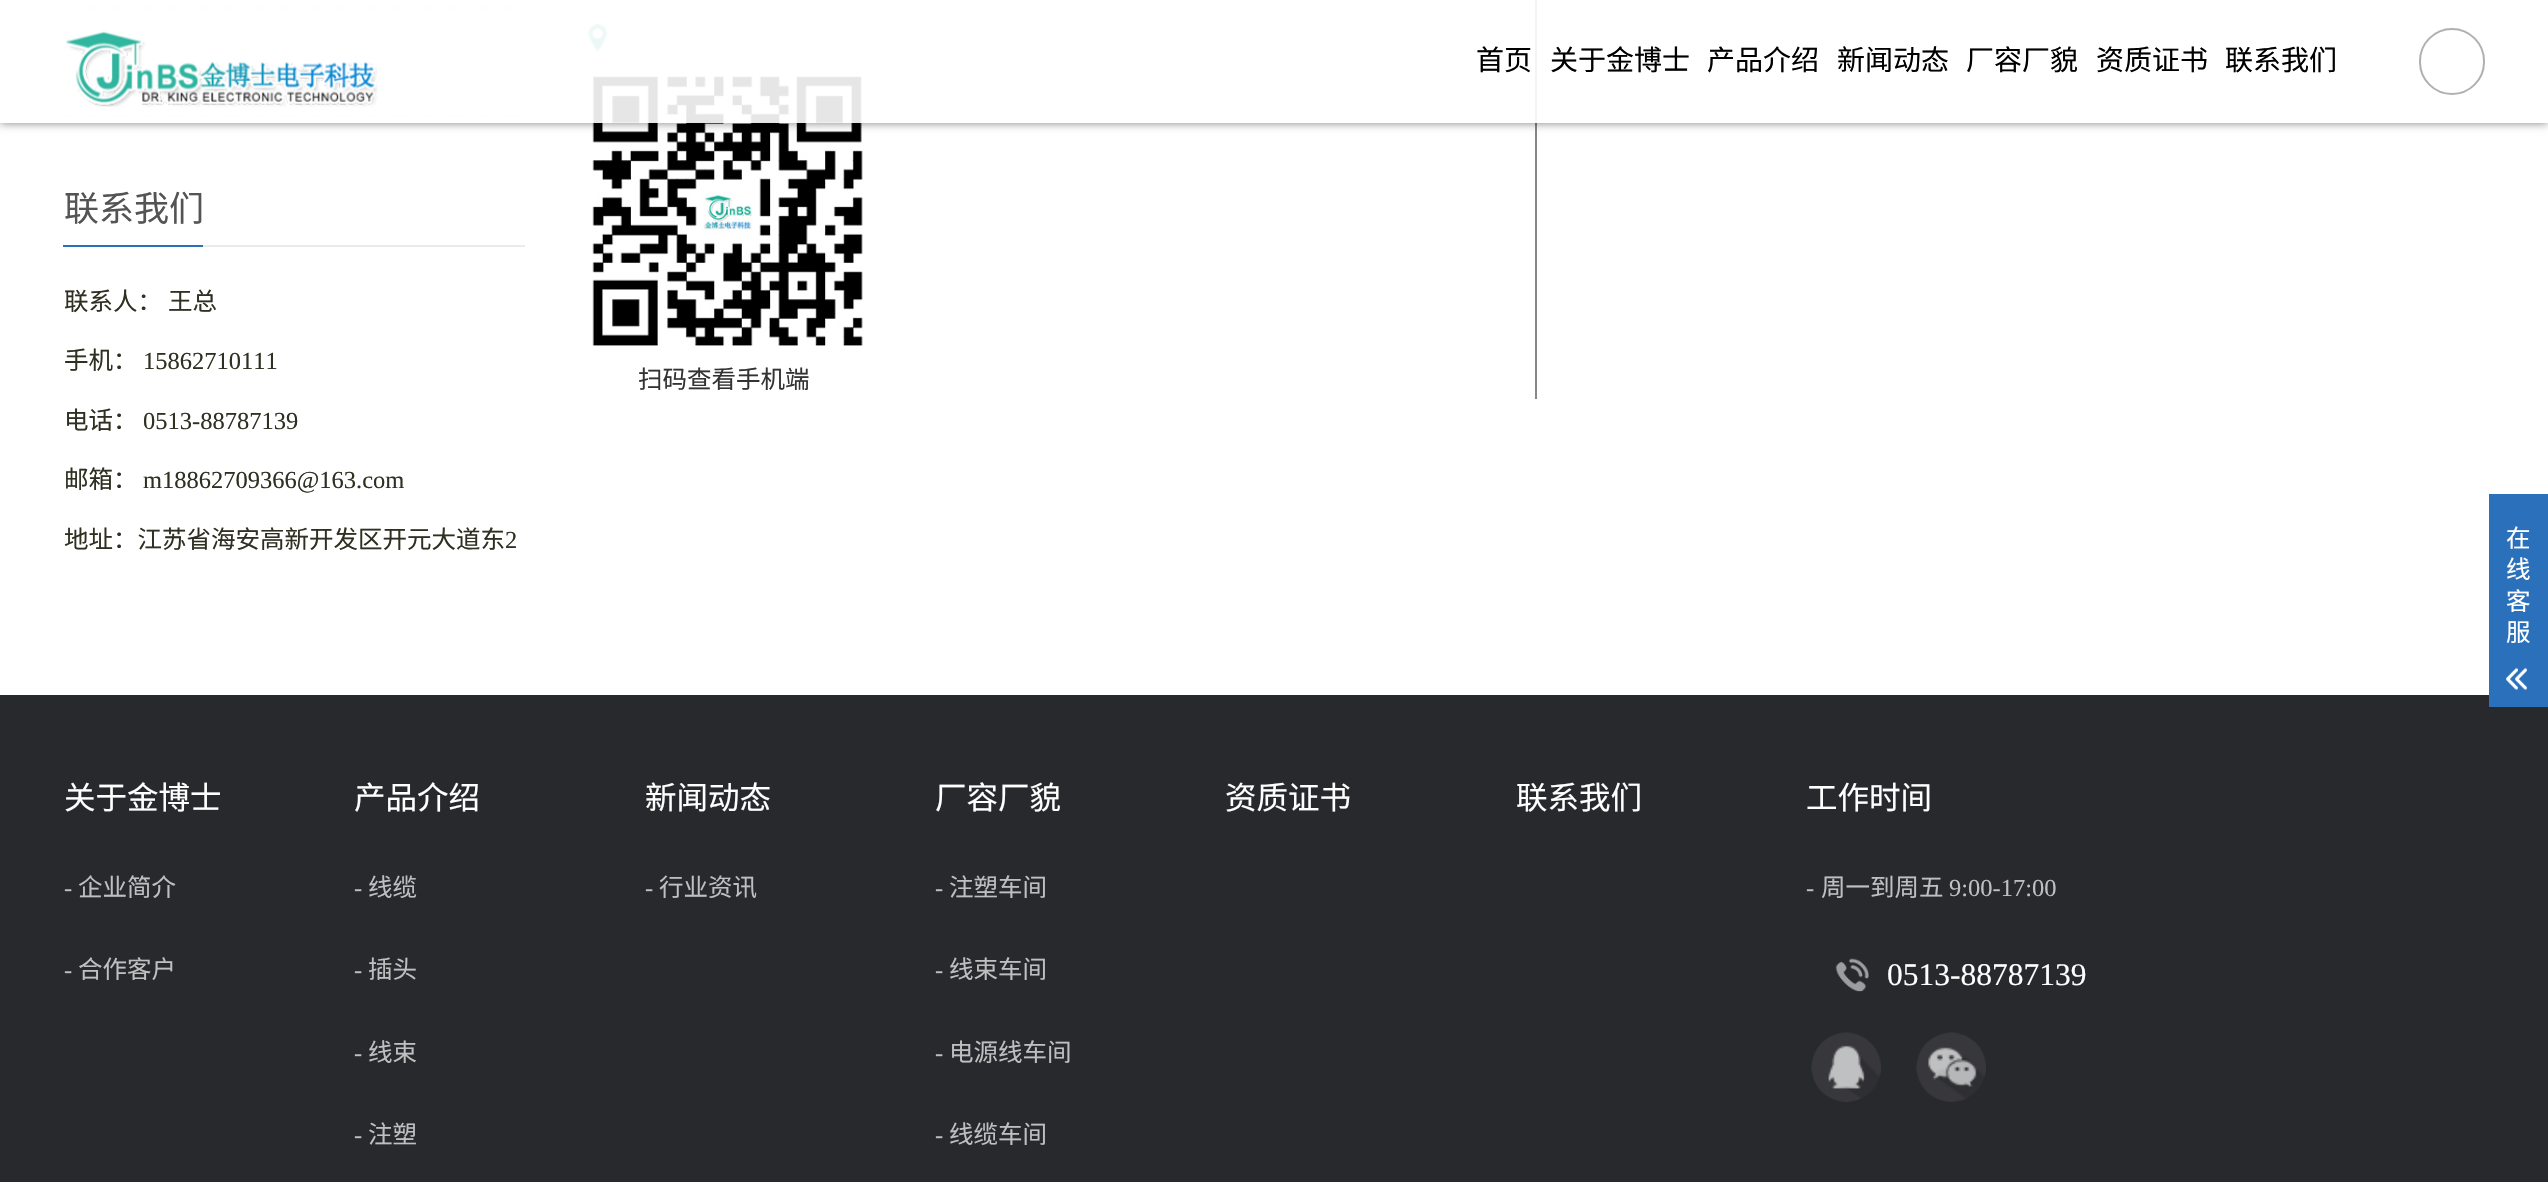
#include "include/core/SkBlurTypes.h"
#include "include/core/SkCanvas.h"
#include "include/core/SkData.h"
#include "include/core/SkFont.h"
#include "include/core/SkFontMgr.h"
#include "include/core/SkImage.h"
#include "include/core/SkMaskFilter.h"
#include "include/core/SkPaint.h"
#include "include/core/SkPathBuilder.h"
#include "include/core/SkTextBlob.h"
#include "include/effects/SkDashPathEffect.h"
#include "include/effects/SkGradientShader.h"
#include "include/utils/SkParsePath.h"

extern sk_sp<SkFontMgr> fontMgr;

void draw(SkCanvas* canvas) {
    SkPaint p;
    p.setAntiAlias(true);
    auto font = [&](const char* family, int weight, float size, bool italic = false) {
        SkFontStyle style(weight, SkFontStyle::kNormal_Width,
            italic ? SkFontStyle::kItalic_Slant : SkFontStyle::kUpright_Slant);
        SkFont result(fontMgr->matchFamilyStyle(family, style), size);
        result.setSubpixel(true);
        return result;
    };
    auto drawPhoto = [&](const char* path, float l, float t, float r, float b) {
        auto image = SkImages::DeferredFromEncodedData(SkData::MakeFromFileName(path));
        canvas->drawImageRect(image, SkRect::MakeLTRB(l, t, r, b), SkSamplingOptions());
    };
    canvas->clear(0xFFFFFFFF);
    p.setStyle(SkPaint::kStroke_Style);
    p.setStrokeWidth(1.8f);
    p.setColor(0xFFDDDDDD);
    p.setPathEffect(SkDashPathEffect::Make({{1.75f, 1.75f}}, 0));
    canvas->drawPath(SkPathBuilder().moveTo(63, 8).lineTo(525, 8).detach(), p);
    p.setPathEffect(nullptr);
    p.setPathEffect(SkDashPathEffect::Make({{1.75f, 1.75f}}, 0));
    canvas->drawPath(SkPathBuilder().moveTo(63, 116.5f).lineTo(525, 116.5f).detach(), p);
    p.setPathEffect(nullptr);
    p.setStyle(SkPaint::kFill_Style);
    p.setColor(0xFF878787);
    canvas->drawRect(SkRect::MakeLTRB(1535, 0, 1537, 399), p);
    drawPhoto("media/2.png", 588, 24, 608, 53);
    drawPhoto("media/3.png", 592, 76, 863, 346);
    canvas->save();
    canvas->clipPath(SkPathBuilder(SkPathFillType::kEvenOdd).moveTo(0, 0).lineTo(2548, 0).lineTo(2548, 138).lineTo(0, 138).close().moveTo(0, 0).lineTo(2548, 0).lineTo(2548, 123).lineTo(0, 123).close().detach(), true);
    p.setColor(0x80000000);
    p.setMaskFilter(SkMaskFilter::MakeBlur(kNormal_SkBlurStyle, 4.5f));
    canvas->drawRect(SkRect::MakeLTRB(0, 0, 2548, 123), p);
    p.setMaskFilter(nullptr);
    canvas->restore();
    p.setColor(0xE6FFFFFF);
    canvas->drawRect(SkRect::MakeLTRB(0, 0, 2548, 123), p);
    drawPhoto("media/1.png", 66, 31, 378, 107);
    auto font1 = font("Noto Sans CJK SC", 400, 28);
    p.setColor(0xFF000000);
    {
        const struct { const char* s; float x, y; } items[] = {
            {"首页", 1476, 70},
            {"关于金博士", 1550, 70},
            {"产品介绍", 1707, 70},
            {"新闻动态", 1837, 70},
            {"厂容厂貌", 1966, 70},
            {"资质证书", 2096, 70},
            {"联系我们", 2225, 70},
        };
        for (auto [s, x, y] : items) {
            canvas->drawString(s, x, y, font1, p);
        }
    }
    p.setStyle(SkPaint::kStroke_Style);
    p.setStrokeWidth(2);
    p.setColor(0xFFB0B0B0);
    canvas->drawRoundRect(SkRect::MakeLTRB(2420, 29, 2484, 94), 32, 32, p);
    p.setStyle(SkPaint::kFill_Style);
    p.setColor(0xFFEBEBEB);
    canvas->drawRect(SkRect::MakeLTRB(203, 245, 525, 247), p);
    auto font2 = font("Noto Sans CJK SC", 400, 35);
    p.setColor(0xFF545454);
    canvas->drawString("联系我们", 64, 221, font2, p);
    p.setColor(0xFF2B70BB);
    canvas->drawRect(SkRect::MakeLTRB(63, 245, 203, 247), p);
    auto font3 = font("Noto Sans CJK SC", 400, 24.5f);
    p.setColor(0xFF2F2F22);
    {
        const struct { const char* s; float x, y; } items[] = {
            {"联系人：", 64, 310},
            {"王总", 168, 310},
            {"手机：", 64, 369},
        };
        for (auto [s, x, y] : items) {
            canvas->drawString(s, x, y, font3, p);
        }
    }
    auto font4 = font("Liberation Serif", 400, 24.5f);
    canvas->drawString("15862710111", 143, 369, font4, p);
    canvas->drawString("电话：", 64, 429, font3, p);
    canvas->drawString("0513-88787139", 143, 429, font4, p);
    canvas->drawString("邮箱：", 64, 488, font3, p);
    canvas->drawString("m18862709366@163.com", 143, 488, font4, p);
    canvas->drawString("地址：江苏省海安高新开发区开元大道东", 64, 548, font3, p);
    canvas->drawString("2", 505, 548, font4, p);
    p.setColor(0xFF333333);
    canvas->drawString("扫码查看手机端", 638, 388, font3, p);
    p.setColor(0xFF28292D);
    canvas->drawRect(SkRect::MakeLTRB(0, 695, 2548, 1182), p);
    p.setColor(0xFF2B70BB);
    canvas->drawRect(SkRect::MakeLTRB(2489, 494, 2548, 707), p);
    p.setColor(0xFFFFFFFF);
    {
        const struct { const char* s; float x, y; } items[] = {
            {"在", 2506, 547},
            {"线", 2506, 578},
            {"客", 2506, 610},
            {"服", 2506, 641},
        };
        for (auto [s, x, y] : items) {
            canvas->drawString(s, x, y, font3, p);
        }
    }
    drawPhoto("media/4.png", 2506, 667, 2527, 690);
    auto font5 = font("Noto Sans CJK SC", 400, 31.5f);
    canvas->drawString("关于金博士", 64, 809, font5, p);
    p.setColor(0xFFBFBFC0);
    canvas->drawString("-", 64, 896, font4, p);
    canvas->drawString("企业简介", 78, 896, font3, p);
    canvas->drawString("-", 64, 978, font4, p);
    canvas->drawString("合作客户", 78, 978, font3, p);
    p.setColor(0xFFFFFFFF);
    canvas->drawString("产品介绍", 354, 809, font5, p);
    p.setColor(0xFFBFBFC0);
    canvas->drawString("-", 354, 896, font4, p);
    canvas->drawString("线缆", 368, 896, font3, p);
    canvas->drawString("-", 354, 978, font4, p);
    canvas->drawString("插头", 368, 978, font3, p);
    canvas->drawString("-", 354, 1061, font4, p);
    canvas->drawString("线束", 368, 1061, font3, p);
    canvas->drawString("-", 354, 1143, font4, p);
    canvas->drawString("注塑", 368, 1143, font3, p);
    p.setColor(0xFFFFFFFF);
    canvas->drawString("新闻动态", 645, 809, font5, p);
    p.setColor(0xFFBFBFC0);
    canvas->drawString("-", 645, 896, font4, p);
    canvas->drawString("行业资讯", 659, 896, font3, p);
    p.setColor(0xFFFFFFFF);
    canvas->drawString("厂容厂貌", 935, 809, font5, p);
    p.setColor(0xFFBFBFC0);
    canvas->drawString("-", 935, 896, font4, p);
    canvas->drawString("注塑车间", 949, 896, font3, p);
    canvas->drawString("-", 935, 978, font4, p);
    canvas->drawString("线束车间", 949, 978, font3, p);
    canvas->drawString("-", 935, 1061, font4, p);
    canvas->drawString("电源线车间", 949, 1061, font3, p);
    canvas->drawString("-", 935, 1143, font4, p);
    canvas->drawString("线缆车间", 949, 1143, font3, p);
    p.setColor(0xFFFFFFFF);
    {
        const struct { const char* s; float x, y; } items[] = {
            {"资质证书", 1225, 809},
            {"联系我们", 1516, 809},
            {"工作时间", 1806, 809},
        };
        for (auto [s, x, y] : items) {
            canvas->drawString(s, x, y, font5, p);
        }
    }
    p.setColor(0xFFBFBFC0);
    canvas->drawString("-", 1806, 896, font4, p);
    canvas->drawString("周一到周五", 1821, 896, font3, p);
    canvas->drawString("9:00-17:00", 1949, 896, font4, p);
    drawPhoto("media/5.png", 1835, 958, 1869, 992);
    auto font6 = font("Liberation Serif", 400, 31.5f);
    p.setColor(0xFFFFFFFF);
    canvas->drawString("0513-88787139", 1887, 985, font6, p);
    drawPhoto("media/6.png", 1811, 1032, 1881, 1102);
    drawPhoto("media/7.png", 1916, 1032, 1986, 1102);
}
